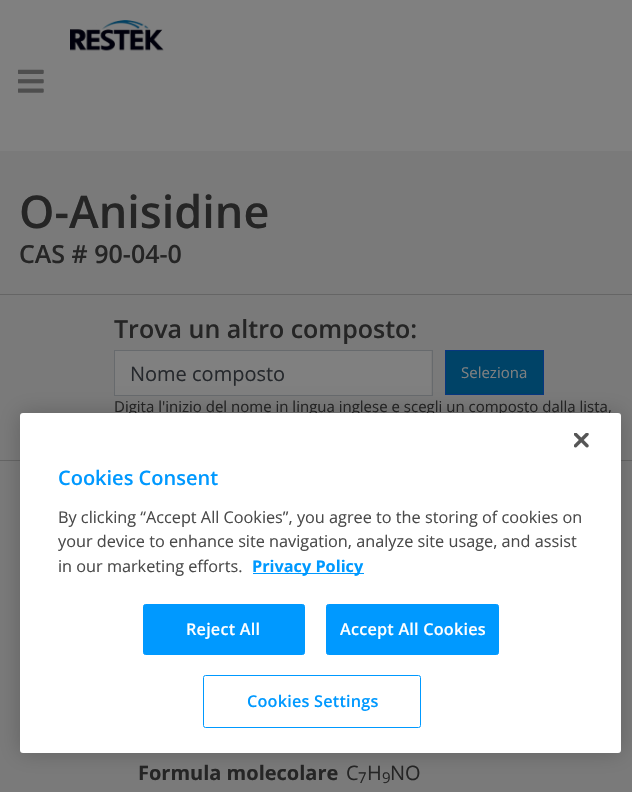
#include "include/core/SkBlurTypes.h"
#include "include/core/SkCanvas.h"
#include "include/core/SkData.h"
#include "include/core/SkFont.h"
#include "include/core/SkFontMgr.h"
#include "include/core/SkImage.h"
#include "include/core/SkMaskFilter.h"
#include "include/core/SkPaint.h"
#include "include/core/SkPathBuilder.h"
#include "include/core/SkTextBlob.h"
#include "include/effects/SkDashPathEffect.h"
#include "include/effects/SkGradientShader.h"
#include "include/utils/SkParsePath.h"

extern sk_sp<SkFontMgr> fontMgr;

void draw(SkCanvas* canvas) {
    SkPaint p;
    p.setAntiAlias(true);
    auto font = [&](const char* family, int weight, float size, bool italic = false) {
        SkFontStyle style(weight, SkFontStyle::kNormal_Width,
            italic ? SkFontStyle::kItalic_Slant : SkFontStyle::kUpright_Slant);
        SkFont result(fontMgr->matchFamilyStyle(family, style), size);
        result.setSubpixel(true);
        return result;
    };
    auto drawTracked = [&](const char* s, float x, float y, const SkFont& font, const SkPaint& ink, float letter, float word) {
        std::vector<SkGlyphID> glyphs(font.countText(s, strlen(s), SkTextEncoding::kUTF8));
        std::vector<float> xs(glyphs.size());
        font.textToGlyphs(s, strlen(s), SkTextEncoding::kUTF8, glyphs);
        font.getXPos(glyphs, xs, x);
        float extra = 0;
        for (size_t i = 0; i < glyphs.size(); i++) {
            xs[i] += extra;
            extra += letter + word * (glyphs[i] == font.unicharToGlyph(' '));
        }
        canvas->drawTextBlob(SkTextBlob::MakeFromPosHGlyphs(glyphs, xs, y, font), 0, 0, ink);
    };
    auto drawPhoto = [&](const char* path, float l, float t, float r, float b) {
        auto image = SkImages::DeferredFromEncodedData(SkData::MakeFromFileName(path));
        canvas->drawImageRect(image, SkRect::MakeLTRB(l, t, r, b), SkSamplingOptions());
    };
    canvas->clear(0xFF808080);
    drawPhoto("media/1.png", 70, 20, 164, 51);
    drawPhoto("media/2.png", 18, 69, 44, 93);
    p.setColor(0xFF7A7A7A);
    canvas->drawRect(SkRect::MakeLTRB(0, 151, 632, 294), p);
    p.setColor(0xFF656565);
    canvas->drawRect(SkRect::MakeLTRB(0, 294, 632, 295), p);
    auto font1 = font("Open Sans", 600, 45);
    p.setColor(0xFF252525);
    canvas->drawString("O-Anisidine", 19, 228, font1, p);
    auto font2 = font("Open Sans", 600, 25);
    canvas->drawString("CAS # 90-04-0", 19, 263, font2, p);
    p.setColor(0xFF7A7A7A);
    canvas->drawRect(SkRect::MakeLTRB(0, 295, 632, 460), p);
    p.setColor(0xFF656565);
    canvas->drawRect(SkRect::MakeLTRB(0, 460, 632, 461), p);
    p.setColor(0xFF252525);
    canvas->drawString("Trova un altro composto:", 114, 338, font2, p);
    p.setColor(0xFF808080);
    canvas->drawRect(SkRect::MakeLTRB(115, 351, 431, 395), p);
    p.setStyle(SkPaint::kStroke_Style);
    p.setStrokeWidth(1);
    p.setColor(0xFF676A6D);
    canvas->drawRect(SkRect::MakeLTRB(114.5f, 350.5f, 432.5f, 395.5f), p);
    auto font3 = font("Open Sans", 400, 20);
    p.setStyle(SkPaint::kFill_Style);
    p.setColor(0xFF25282C);
    canvas->drawString("Nome composto", 130, 381, font3, p);
    p.setColor(0xFF004367);
    canvas->drawRect(SkRect::MakeLTRB(445.5f, 350.5f, 543.5f, 394.5f), p);
    p.setStyle(SkPaint::kStroke_Style);
    p.setColor(0xFF07377F);
    canvas->drawRect(SkRect::MakeLTRB(445.5f, 350.5f, 543.5f, 394.5f), p);
    auto font4 = font("Open Sans", 400, 15);
    p.setStyle(SkPaint::kFill_Style);
    p.setColor(0xFF808080);
    canvas->drawString("Seleziona", 461, 378, font4, p);
    p.setColor(0xFF252525);
    canvas->drawString("Digita l'inizio del nome in lingua inglese e scegli un composto dalla lista,", 114, 412, font4, p);
    p.setColor(0xFF7A7A7A);
    canvas->drawRect(SkRect::MakeLTRB(0, 461, 632, 792), p);
    auto font5 = font("Open Sans", 700, 20);
    p.setColor(0xFF252525);
    canvas->drawString("Formula molecolare", 138, 780, font5, p);
    canvas->drawString("C", 346, 780, font3, p);
    canvas->drawString("7", 358, 783, font4, p);
    canvas->drawString("H", 367, 780, font3, p);
    canvas->drawString("9", 382, 783, font4, p);
    canvas->drawString("NO", 390, 780, font3, p);
    p.setColor(0x33000000);
    p.setMaskFilter(SkMaskFilter::MakeBlur(kNormal_SkBlurStyle, 11));
    canvas->drawRoundRect(SkRect::MakeLTRB(20, 413, 621, 753), 3, 3, p);
    p.setMaskFilter(nullptr);
    p.setColor(0xFFFFFFFF);
    canvas->drawRoundRect(SkRect::MakeLTRB(20, 413, 621, 753), 3, 3, p);
    drawPhoto("media/3.png", 574, 433, 589, 448);
    auto font6 = font("Open Sans", 600, 20);
    p.setColor(0xFF0099FF);
    canvas->drawString("Cookies Consent", 58, 485, font6, p);
    auto font7 = font("Open Sans", 400, 16.25f);
    p.setColor(0xFF4A4A4A);
    {
        const struct { const char* s; float x, y; } items[] = {
            {"By clicking “Accept All Cookies”, you agree to the storing of cookies on", 58, 523},
            {"your device to enhance site navigation, analyze site usage, and assist", 58, 547},
            {"in our marketing efforts.", 58, 572},
        };
        for (auto [s, x, y] : items) {
            canvas->drawString(s, x, y, font7, p);
        }
    }
    p.setColor(0xFF0099FF);
    canvas->drawRect(SkRect::MakeLTRB(253, 573, 364, 574), p);
    auto font8 = font("Open Sans", 700, 16.25f);
    canvas->drawString("Privacy Policy", 252, 572, font8, p);
    canvas->drawRoundRect(SkRect::MakeLTRB(143.5f, 604.5f, 304.5f, 654.5f), 2, 2, p);
    p.setStyle(SkPaint::kStroke_Style);
    canvas->drawRoundRect(SkRect::MakeLTRB(143.5f, 604.5f, 304.5f, 654.5f), 2, 2, p);
    auto font9 = font("Open Sans", 600, 16.25f);
    p.setStyle(SkPaint::kFill_Style);
    p.setColor(0xFFFFFFFF);
    drawTracked("Reject All", 186, 635, font9, p, 0.2f, 0);
    p.setColor(0xFF0099FF);
    canvas->drawRoundRect(SkRect::MakeLTRB(326.5f, 604.5f, 498.5f, 654.5f), 2, 2, p);
    p.setStyle(SkPaint::kStroke_Style);
    canvas->drawRoundRect(SkRect::MakeLTRB(326.5f, 604.5f, 498.5f, 654.5f), 2, 2, p);
    p.setStyle(SkPaint::kFill_Style);
    p.setColor(0xFFFFFFFF);
    drawTracked("Accept All Cookies", 340, 635, font9, p, 0.2f, 0);
    p.setStyle(SkPaint::kStroke_Style);
    p.setColor(0xFF0099FF);
    canvas->drawRoundRect(SkRect::MakeLTRB(203.5f, 675.5f, 420.5f, 727.5f), 2, 2, p);
    p.setStyle(SkPaint::kFill_Style);
    drawTracked("Cookies Settings", 247, 707, font9, p, 0.2f, 0);
}
